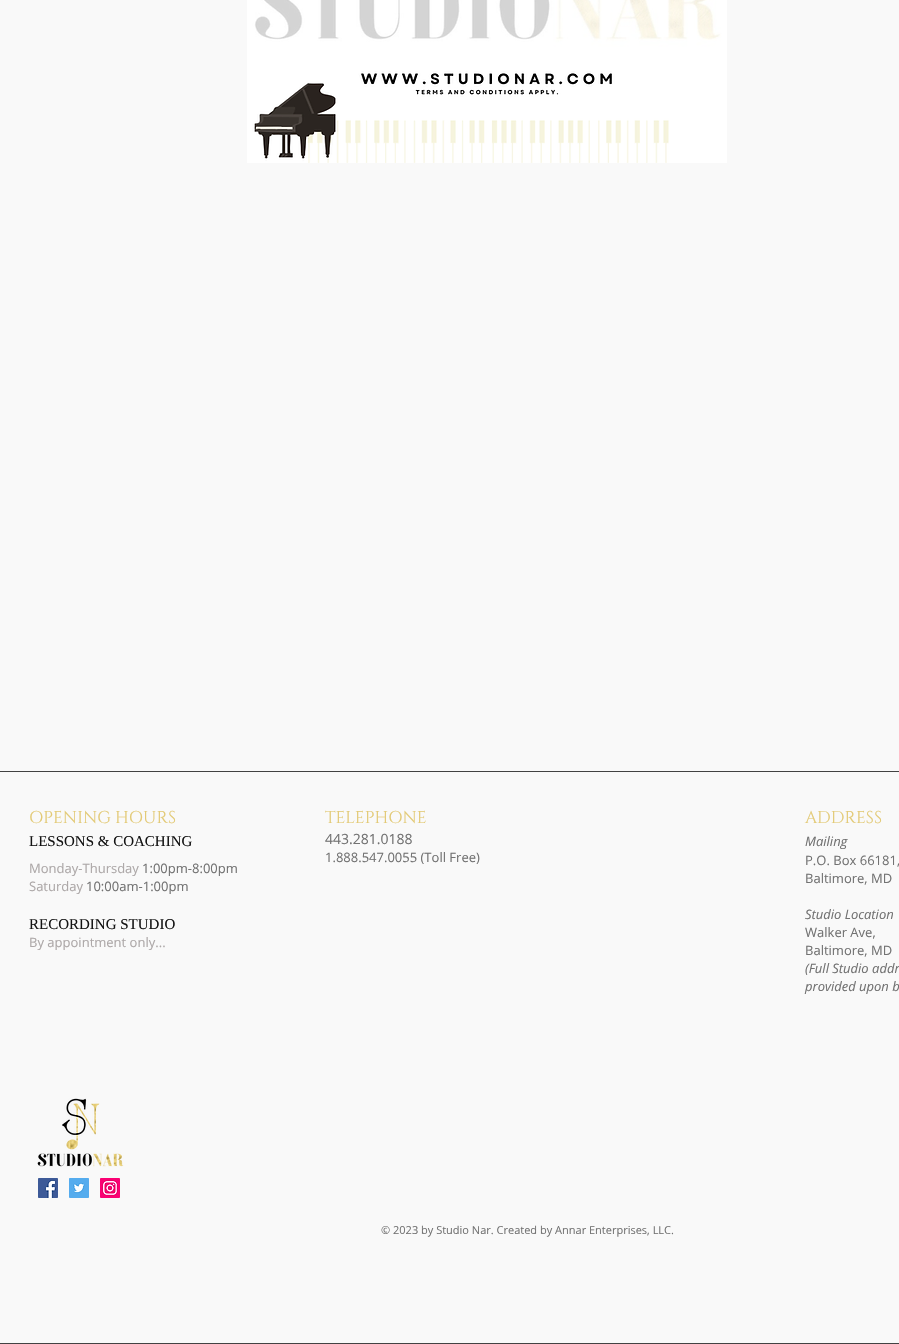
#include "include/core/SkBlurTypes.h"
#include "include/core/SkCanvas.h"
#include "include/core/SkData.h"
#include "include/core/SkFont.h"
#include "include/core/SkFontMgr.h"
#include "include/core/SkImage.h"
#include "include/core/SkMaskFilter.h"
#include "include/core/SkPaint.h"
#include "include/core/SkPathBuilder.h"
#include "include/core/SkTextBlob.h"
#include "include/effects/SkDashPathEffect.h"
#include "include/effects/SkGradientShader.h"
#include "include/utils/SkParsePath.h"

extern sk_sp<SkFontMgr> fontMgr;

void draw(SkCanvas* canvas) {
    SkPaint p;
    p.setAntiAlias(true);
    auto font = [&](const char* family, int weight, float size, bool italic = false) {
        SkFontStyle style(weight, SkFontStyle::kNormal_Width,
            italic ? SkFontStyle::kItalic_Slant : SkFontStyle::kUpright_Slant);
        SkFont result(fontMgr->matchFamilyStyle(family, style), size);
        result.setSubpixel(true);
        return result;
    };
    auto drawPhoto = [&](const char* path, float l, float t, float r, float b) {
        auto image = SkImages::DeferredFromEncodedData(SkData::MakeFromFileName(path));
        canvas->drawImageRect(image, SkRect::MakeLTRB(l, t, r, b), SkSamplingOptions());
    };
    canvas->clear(0xFFF9F9F9);
    drawPhoto("media/1.png", 247, 0, 727, 163);
    p.setColor(0xFF424242);
    canvas->drawRect(SkRect::MakeLTRB(0, 771, 899, 772), p);
    canvas->drawRect(SkRect::MakeLTRB(0, 1343, 899, 1344), p);
    auto font1 = font("Cinzel", 400, 17);
    p.setColor(0xFFE3CA76);
    canvas->drawString("OPENING HOURS", 29, 823, font1, p);
    auto font2 = font("Liberation Serif", 400, 15);
    p.setColor(0xFF141414);
    canvas->drawString("LESSONS & COACHING", 29, 846, font2, p);
    auto font3 = font("Open Sans", 400, 13);
    p.setColor(0xFFADA8A8);
    canvas->drawString("Monday-Thursday", 29, 873, font3, p);
    p.setColor(0xFF727272);
    canvas->drawString("1:00pm-8:00pm", 142, 873, font3, p);
    p.setColor(0xFFADA8A8);
    canvas->drawString("Saturday", 29, 891, font3, p);
    p.setColor(0xFF727272);
    canvas->drawString("10:00am-1:00pm", 86, 891, font3, p);
    p.setColor(0xFF141414);
    canvas->drawString("RECORDING STUDIO", 29, 929, font2, p);
    p.setColor(0xFFADA8A8);
    canvas->drawString("By appointment only...", 29, 947, font3, p);
    p.setColor(0xFFE3CA76);
    canvas->drawString("TELEPHONE", 325, 823, font1, p);
    auto font4 = font("Open Sans", 400, 14);
    p.setColor(0xFF727272);
    canvas->drawString("443.281.0188", 325, 844, font4, p);
    canvas->drawString("1.888.547.0055 (Toll Free)", 325, 862, font3, p);
    p.setColor(0xFFE3CA76);
    canvas->drawString("ADDRESS", 805, 823, font1, p);
    auto font5 = font("Open Sans", 400, 13, true);
    p.setColor(0xFF727272);
    canvas->drawString("Mailing", 805, 846, font5, p);
    canvas->drawString("P.O. Box 66181,", 805, 865, font3, p);
    canvas->drawString("Baltimore, MD", 805, 883, font3, p);
    canvas->drawString("Studio Location", 805, 919, font5, p);
    canvas->drawString("Walker Ave,", 805, 937, font3, p);
    canvas->drawString("Baltimore, MD", 805, 955, font3, p);
    canvas->drawString("(Full Studio addr", 805, 973, font5, p);
    canvas->drawString("provided upon b", 805, 991, font5, p);
    drawPhoto("media/2.png", 37, 1098, 124, 1167);
    drawPhoto("media/3.png", 38, 1178, 58, 1198);
    drawPhoto("media/4.png", 69, 1178, 89, 1198);
    drawPhoto("media/5.png", 100, 1178, 120, 1198);
    auto font6 = font("Open Sans", 400, 11);
    canvas->drawString("© 2023 by Studio Nar. Created by Annar Enterprises, LLC.", 381, 1234, font6, p);
}
